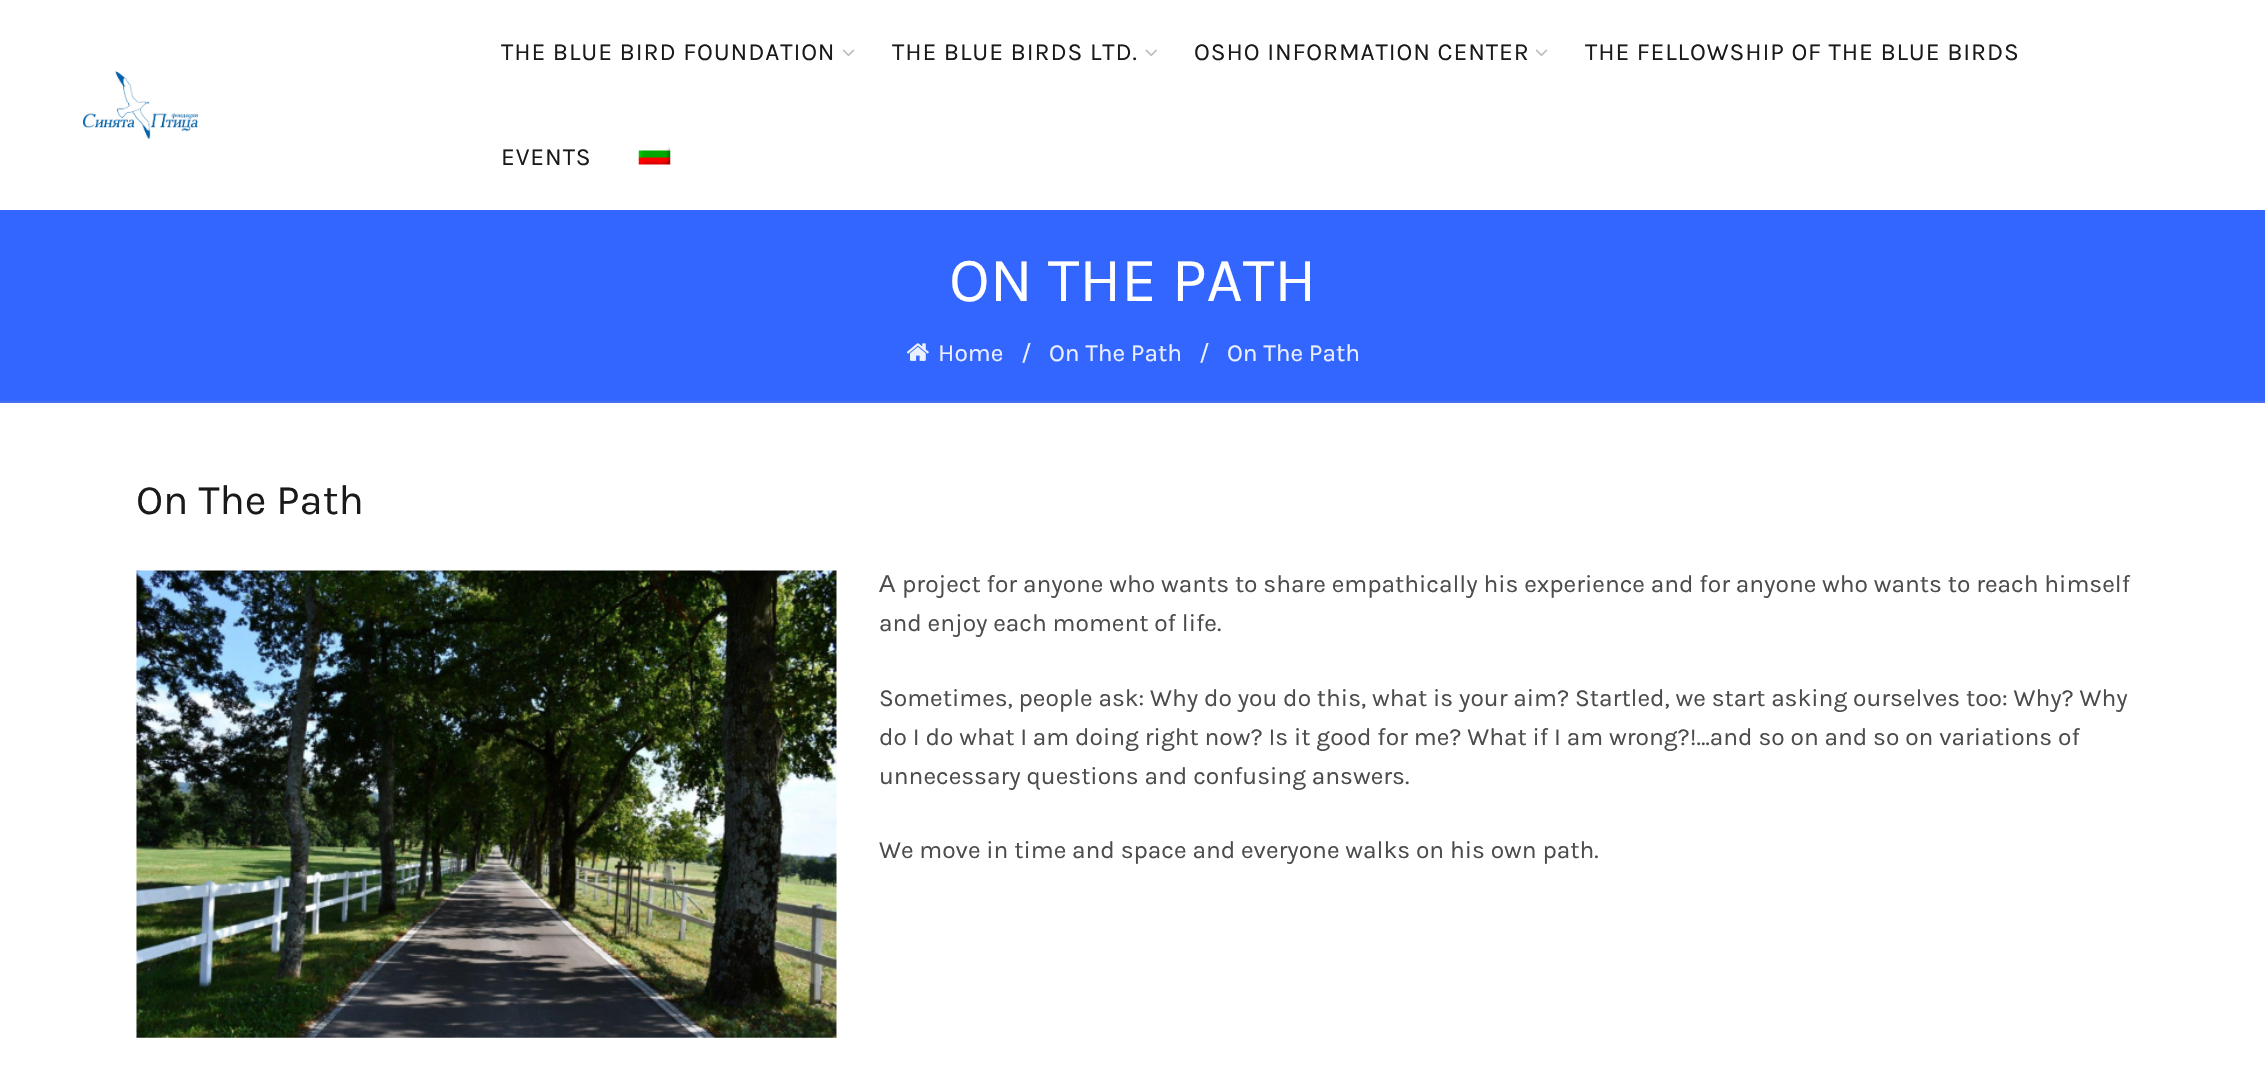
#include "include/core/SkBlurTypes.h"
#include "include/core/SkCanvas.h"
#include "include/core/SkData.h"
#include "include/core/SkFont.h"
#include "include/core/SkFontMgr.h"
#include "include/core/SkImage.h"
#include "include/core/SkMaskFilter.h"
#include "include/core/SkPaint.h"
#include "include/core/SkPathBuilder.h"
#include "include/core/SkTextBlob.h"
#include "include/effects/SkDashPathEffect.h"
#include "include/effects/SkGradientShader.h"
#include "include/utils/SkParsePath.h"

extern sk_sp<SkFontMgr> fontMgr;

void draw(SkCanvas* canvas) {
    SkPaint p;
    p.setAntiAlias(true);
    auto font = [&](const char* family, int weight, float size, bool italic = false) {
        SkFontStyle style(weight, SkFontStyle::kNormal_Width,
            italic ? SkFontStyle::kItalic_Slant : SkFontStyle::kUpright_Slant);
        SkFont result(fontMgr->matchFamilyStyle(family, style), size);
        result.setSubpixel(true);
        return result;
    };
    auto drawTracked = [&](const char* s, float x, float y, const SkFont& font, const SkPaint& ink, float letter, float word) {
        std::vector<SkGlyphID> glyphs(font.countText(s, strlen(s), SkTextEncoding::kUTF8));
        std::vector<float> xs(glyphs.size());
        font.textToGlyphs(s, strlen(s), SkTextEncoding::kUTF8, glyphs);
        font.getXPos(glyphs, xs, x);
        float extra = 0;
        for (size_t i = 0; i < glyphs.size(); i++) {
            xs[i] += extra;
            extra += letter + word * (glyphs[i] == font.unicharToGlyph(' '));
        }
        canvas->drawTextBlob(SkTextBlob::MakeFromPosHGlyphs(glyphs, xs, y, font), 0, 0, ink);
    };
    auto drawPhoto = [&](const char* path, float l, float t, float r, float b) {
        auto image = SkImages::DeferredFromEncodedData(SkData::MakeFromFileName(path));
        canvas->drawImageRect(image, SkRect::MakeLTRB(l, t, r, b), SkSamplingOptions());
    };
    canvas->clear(0xFFFFFFFF);
    drawPhoto("media/1.png", 83, 71, 198, 139);
    auto font1 = font("Karla", 400, 24.5f);
    p.setColor(0xFF1A1A1A);
    drawTracked("THE BLUE BIRD FOUNDATION", 501, 60, font1, p, 0.9f, 0);
    drawPhoto("media/2.png", 842, 49, 855, 57);
    drawTracked("THE BLUE BIRDS LTD.", 892, 60, font1, p, 0.9f, 0);
    drawPhoto("media/3.png", 1145, 49, 1157, 57);
    drawTracked("OSHO INFORMATION CENTER", 1194, 60, font1, p, 0.9f, 0);
    drawPhoto("media/2.png", 1535, 49, 1548, 57);
    drawTracked("THE FELLOWSHIP OF THE BLUE BIRDS", 1585, 60, font1, p, 0.9f, 0);
    drawTracked("EVENTS", 501, 165, font1, p, 0.9f, 0);
    drawPhoto("media/4.png", 638, 146, 671, 165);
    p.setColor(0xFF3366FF);
    canvas->drawRect(SkRect::MakeLTRB(0, 210, 2265, 401), p);
    p.setColor(0xFF4570F2);
    canvas->drawRect(SkRect::MakeLTRB(0, 401, 2265, 403), p);
    auto font2 = font("Karla", 400, 63);
    p.setColor(0xFFFFFFFF);
    canvas->drawString("ON THE PATH", 949, 301, font2, p);
    drawPhoto("media/5.png", 906, 343, 929, 361);
    p.setColor(0xFFEBF0FF);
    {
        const struct { const char* s; float x, y; } items[] = {
            {"Home", 938, 361},
            {"/", 1021, 361},
            {"On The Path", 1049, 361},
            {"/", 1199, 361},
            {"On The Path", 1227, 361},
        };
        for (auto [s, x, y] : items) {
            canvas->drawString(s, x, y, font1, p);
        }
    }
    auto font3 = font("Karla", 400, 42);
    p.setColor(0xFF1A1A1A);
    canvas->drawString("On The Path", 136, 514, font3, p);
    drawPhoto("media/6.png", 136, 570, 837, 1038);
    auto font4 = font("Liberation Sans", 400, 24.5f);
    p.setColor(0xFF4C4C4C);
    canvas->drawString("А", 879, 592, font4, p);
    {
        const struct { const char* s; float x, y; } items[] = {
            {"project for anyone who wants to share empathically his experience and for anyone who wants to reach himself", 902, 592},
            {"and enjoy each moment of life.", 879, 631},
            {"Sometimes, people ask: Why do you do this, what is your aim? Startled, we start asking ourselves too: Why? Why", 879, 706},
            {"do I do what I am doing right now? Is it good for me? What if I am wrong?!…and so on and so on variations of", 879, 745},
            {"unnecessary questions and confusing answers.", 879, 784},
            {"We move in time and space and everyone walks on his own path.", 879, 858},
        };
        for (auto [s, x, y] : items) {
            canvas->drawString(s, x, y, font1, p);
        }
    }
}
